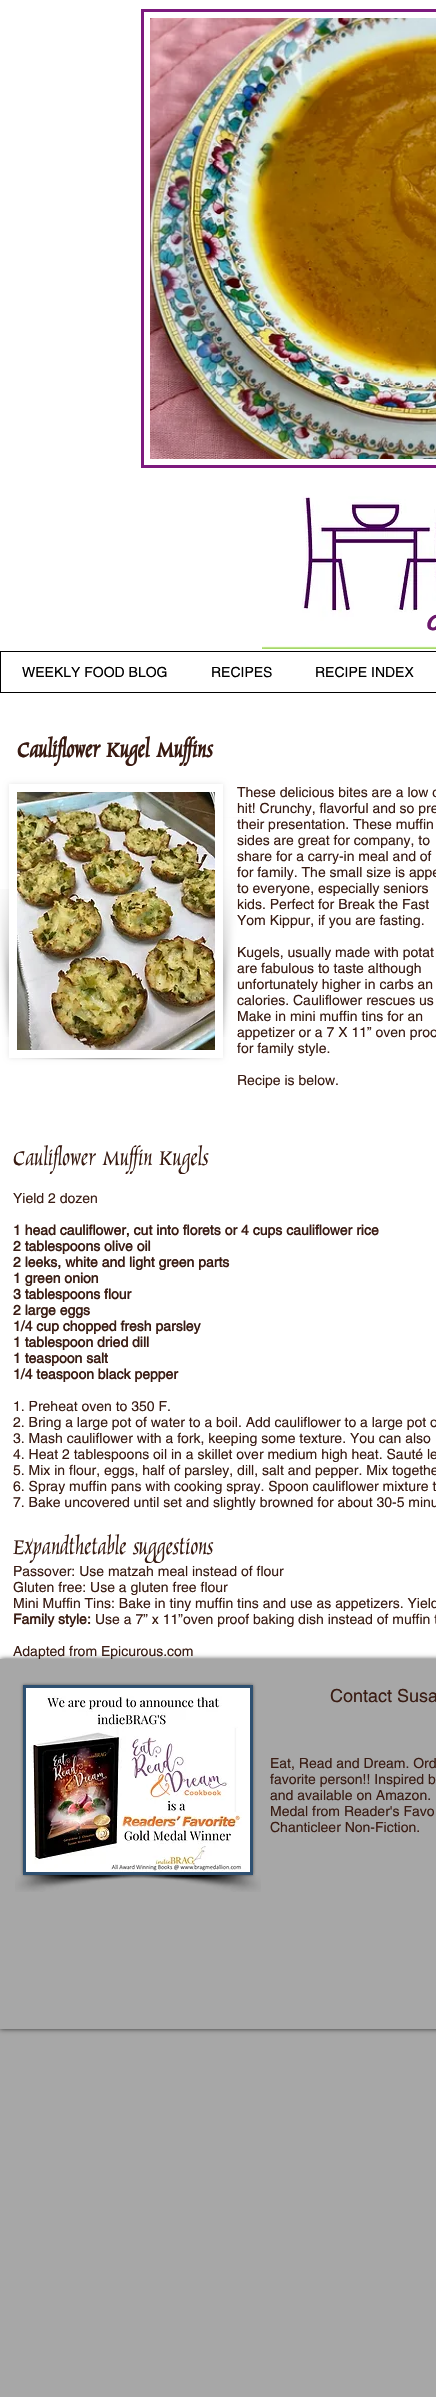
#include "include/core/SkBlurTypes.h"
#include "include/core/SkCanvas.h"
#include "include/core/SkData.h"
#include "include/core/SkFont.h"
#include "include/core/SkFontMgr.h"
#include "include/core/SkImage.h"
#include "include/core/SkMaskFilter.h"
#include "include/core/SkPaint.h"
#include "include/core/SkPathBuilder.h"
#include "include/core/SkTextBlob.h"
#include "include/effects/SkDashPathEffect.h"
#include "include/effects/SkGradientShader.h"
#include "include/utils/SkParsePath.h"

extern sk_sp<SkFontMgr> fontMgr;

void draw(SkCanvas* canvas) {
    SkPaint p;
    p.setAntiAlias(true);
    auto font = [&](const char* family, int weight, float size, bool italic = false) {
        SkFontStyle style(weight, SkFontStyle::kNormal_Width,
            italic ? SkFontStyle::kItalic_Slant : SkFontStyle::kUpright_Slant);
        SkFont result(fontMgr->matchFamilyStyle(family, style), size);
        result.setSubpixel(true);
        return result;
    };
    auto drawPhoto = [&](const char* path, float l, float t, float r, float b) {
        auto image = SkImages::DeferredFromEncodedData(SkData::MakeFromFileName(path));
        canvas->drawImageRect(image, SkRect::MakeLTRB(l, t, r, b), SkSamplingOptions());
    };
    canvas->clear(0xFFA7A7A7);
    p.setColor(0xFFFFFFFF);
    canvas->drawRect(SkRect::MakeLTRB(0, 0, 436, 1659), p);
    p.setStyle(SkPaint::kStroke_Style);
    p.setStrokeWidth(3);
    p.setColor(0xFF7D1A7E);
    canvas->drawRect(SkRect::MakeLTRB(142.5f, 10.5f, 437.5f, 466.5f), p);
    drawPhoto("media/1.png", 150, 18, 436, 459);
    drawPhoto("media/2.png", 262, 496, 436, 649);
    auto font1 = font("Sriracha", 700, 22);
    p.setStyle(SkPaint::kFill_Style);
    p.setColor(0xFF6B186B);
    canvas->drawString("C", 427, 630, font1, p);
    p.setStyle(SkPaint::kStroke_Style);
    p.setStrokeWidth(1);
    p.setColor(0xFF000000);
    canvas->drawRect(SkRect::MakeLTRB(0.5f, 651.5f, 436.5f, 692.5f), p);
    auto font2 = font("helvetica", 400, 14);
    p.setStyle(SkPaint::kFill_Style);
    {
        const struct { const char* s; float x, y; } items[] = {
            {"WEEKLY FOOD BLOG", 22, 677},
            {"RECIPES", 211, 677},
            {"RECIPE INDEX", 315, 677},
        };
        for (auto [s, x, y] : items) {
            canvas->drawString(s, x, y, font2, p);
        }
    }
    auto font3 = font("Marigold", 700, 30);
    p.setColor(0xFF3A1C13);
    canvas->drawString("Cauliflower Kugel Muffins", 17, 757, font3, p);
    canvas->save();
    canvas->clipPath(SkPathBuilder(SkPathFillType::kEvenOdd).moveTo(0, 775).lineTo(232, 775).lineTo(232, 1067).lineTo(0, 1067).close().moveTo(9, 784).lineTo(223, 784).lineTo(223, 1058).lineTo(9, 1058).close().detach(), true);
    p.setColor(0x1A000000);
    p.setMaskFilter(SkMaskFilter::MakeBlur(kNormal_SkBlurStyle, 2.5f));
    canvas->drawRect(SkRect::MakeLTRB(9, 784, 223, 1058), p);
    p.setMaskFilter(nullptr);
    canvas->restore();
    drawPhoto("media/3.png", 17, 792, 215, 1050);
    drawPhoto("media/4.png", 22, 1058, 210, 1060);
    drawPhoto("media/5.png", 223, 817, 247, 1037);
    drawPhoto("media/6.png", 0, 889, 9, 1037);
    p.setColor(0xFF3A1C13);
    {
        const struct { const char* s; float x, y; } items[] = {
            {"These delicious bites are a low c", 237, 797},
            {"hit! Crunchy, flavorful and so pre", 237, 813},
            {"their presentation. These muffin", 237, 829},
            {"sides are great for company, to", 237, 845},
            {"share for a carry-in meal and of", 237, 861},
            {"for family. The small size is appe", 237, 877},
            {"to everyone, especially seniors", 237, 893},
            {"kids. Perfect for Break the Fast", 237, 909},
            {"Yom Kippur, if you are fasting.", 237, 925},
            {"Kugels, usually made with potat", 237, 957},
            {"are fabulous to taste although", 237, 973},
            {"unfortunately higher in carbs an", 237, 989},
            {"calories. Cauliflower rescues us", 237, 1005},
            {"Make in mini muffin tins for an", 237, 1021},
            {"appetizer or a 7 X 11” oven proo", 237, 1037},
            {"for family style.", 237, 1053},
            {"Recipe is below.", 237, 1085},
        };
        for (auto [s, x, y] : items) {
            canvas->drawString(s, x, y, font2, p);
        }
    }
    auto font4 = font("Marigold", 400, 30);
    canvas->drawString("Cauliflower Muffin Kugels", 13, 1165, font4, p);
    canvas->drawString("Yield 2 dozen", 13, 1203, font2, p);
    auto font5 = font("helvetica", 700, 14);
    {
        const struct { const char* s; float x, y; } items[] = {
            {"1 head cauliflower, cut into florets or 4 cups cauliflower rice", 13, 1235},
            {"2 tablespoons olive oil", 13, 1251},
            {"2 leeks, white and light green parts", 13, 1267},
            {"1 green onion", 13, 1283},
            {"3 tablespoons flour", 13, 1299},
            {"2 large eggs", 13, 1315},
            {"1/4 cup chopped fresh parsley", 13, 1331},
            {"1 tablespoon dried dill", 13, 1347},
            {"1 teaspoon salt", 13, 1363},
            {"1/4 teaspoon black pepper", 13, 1379},
        };
        for (auto [s, x, y] : items) {
            canvas->drawString(s, x, y, font5, p);
        }
    }
    {
        const struct { const char* s; float x, y; } items[] = {
            {"1. Preheat oven to 350 F.", 13, 1411},
            {"2. Bring a large pot of water to a boil. Add cauliflower to a large pot o", 13, 1427},
            {"3. Mash cauliflower with a fork, keeping some texture. You can also", 13, 1443},
            {"4. Heat 2 tablespoons oil in a skillet over medium high heat. Sauté le", 13, 1459},
            {"5. Mix in flour, eggs, half of parsley, dill, salt and pepper. Mix togethe", 13, 1475},
            {"6. Spray muffin pans with cooking spray. Spoon cauliflower mixture t", 13, 1491},
            {"7. Bake uncovered until set and slightly browned for about 30-5 minu", 13, 1507},
        };
        for (auto [s, x, y] : items) {
            canvas->drawString(s, x, y, font2, p);
        }
    }
    canvas->drawString("Expandthetable suggestions", 13, 1554, font4, p);
    {
        const struct { const char* s; float x, y; } items[] = {
            {"Passover: Use matzah meal instead of flour", 13, 1576},
            {"Gluten free: Use a gluten free flour", 13, 1592},
            {"Mini Muffin Tins: Bake in tiny muffin tins and use as appetizers. Yield", 13, 1608},
        };
        for (auto [s, x, y] : items) {
            canvas->drawString(s, x, y, font2, p);
        }
    }
    canvas->drawString("Family style:", 13, 1624, font5, p);
    canvas->drawString("Use a 7” x 11”oven proof baking dish instead of muffin t", 95, 1624, font2, p);
    canvas->drawString("Adapted from Epicurous.com", 13, 1656, font2, p);
    canvas->save();
    canvas->clipPath(SkPathBuilder(SkPathFillType::kEvenOdd).moveTo(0, 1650).lineTo(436, 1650).lineTo(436, 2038).lineTo(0, 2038).close().moveTo(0, 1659).lineTo(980, 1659).lineTo(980, 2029).lineTo(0, 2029).close().detach(), true);
    p.setColor(0xB3000000);
    p.setMaskFilter(SkMaskFilter::MakeBlur(kNormal_SkBlurStyle, 2.5f));
    canvas->drawRect(SkRect::MakeLTRB(0, 1659, 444, 2029), p);
    p.setMaskFilter(nullptr);
    canvas->restore();
    p.setColor(0x80000000);
    p.setMaskFilter(SkMaskFilter::MakeBlur(kNormal_SkBlurStyle, 1.5f));
    canvas->drawRect(SkRect::MakeLTRB(23, 1685, 253, 1875), p);
    p.setMaskFilter(nullptr);
    p.setColor(0xFF2E5071);
    canvas->drawRect(SkRect::MakeLTRB(23, 1685, 253, 1875), p);
    drawPhoto("media/7.png", 26, 1688, 250, 1872);
    drawPhoto("media/8.png", 15, 1875, 161, 1892);
    drawPhoto("media/9.png", 123, 1875, 261, 1892);
    auto font6 = font("helvetica", 400, 18);
    p.setColor(0xFF3A1C13);
    canvas->drawString("Contact Susa", 330, 1702, font6, p);
    {
        const struct { const char* s; float x, y; } items[] = {
            {"Eat, Read and Dream. Ord", 270, 1768},
            {"favorite person!! Inspired b", 270, 1784},
            {"and available on Amazon.", 270, 1800},
            {"Medal from Reader's Favo", 270, 1816},
            {"Chanticleer Non-Fiction.", 270, 1832},
        };
        for (auto [s, x, y] : items) {
            canvas->drawString(s, x, y, font2, p);
        }
    }
}
